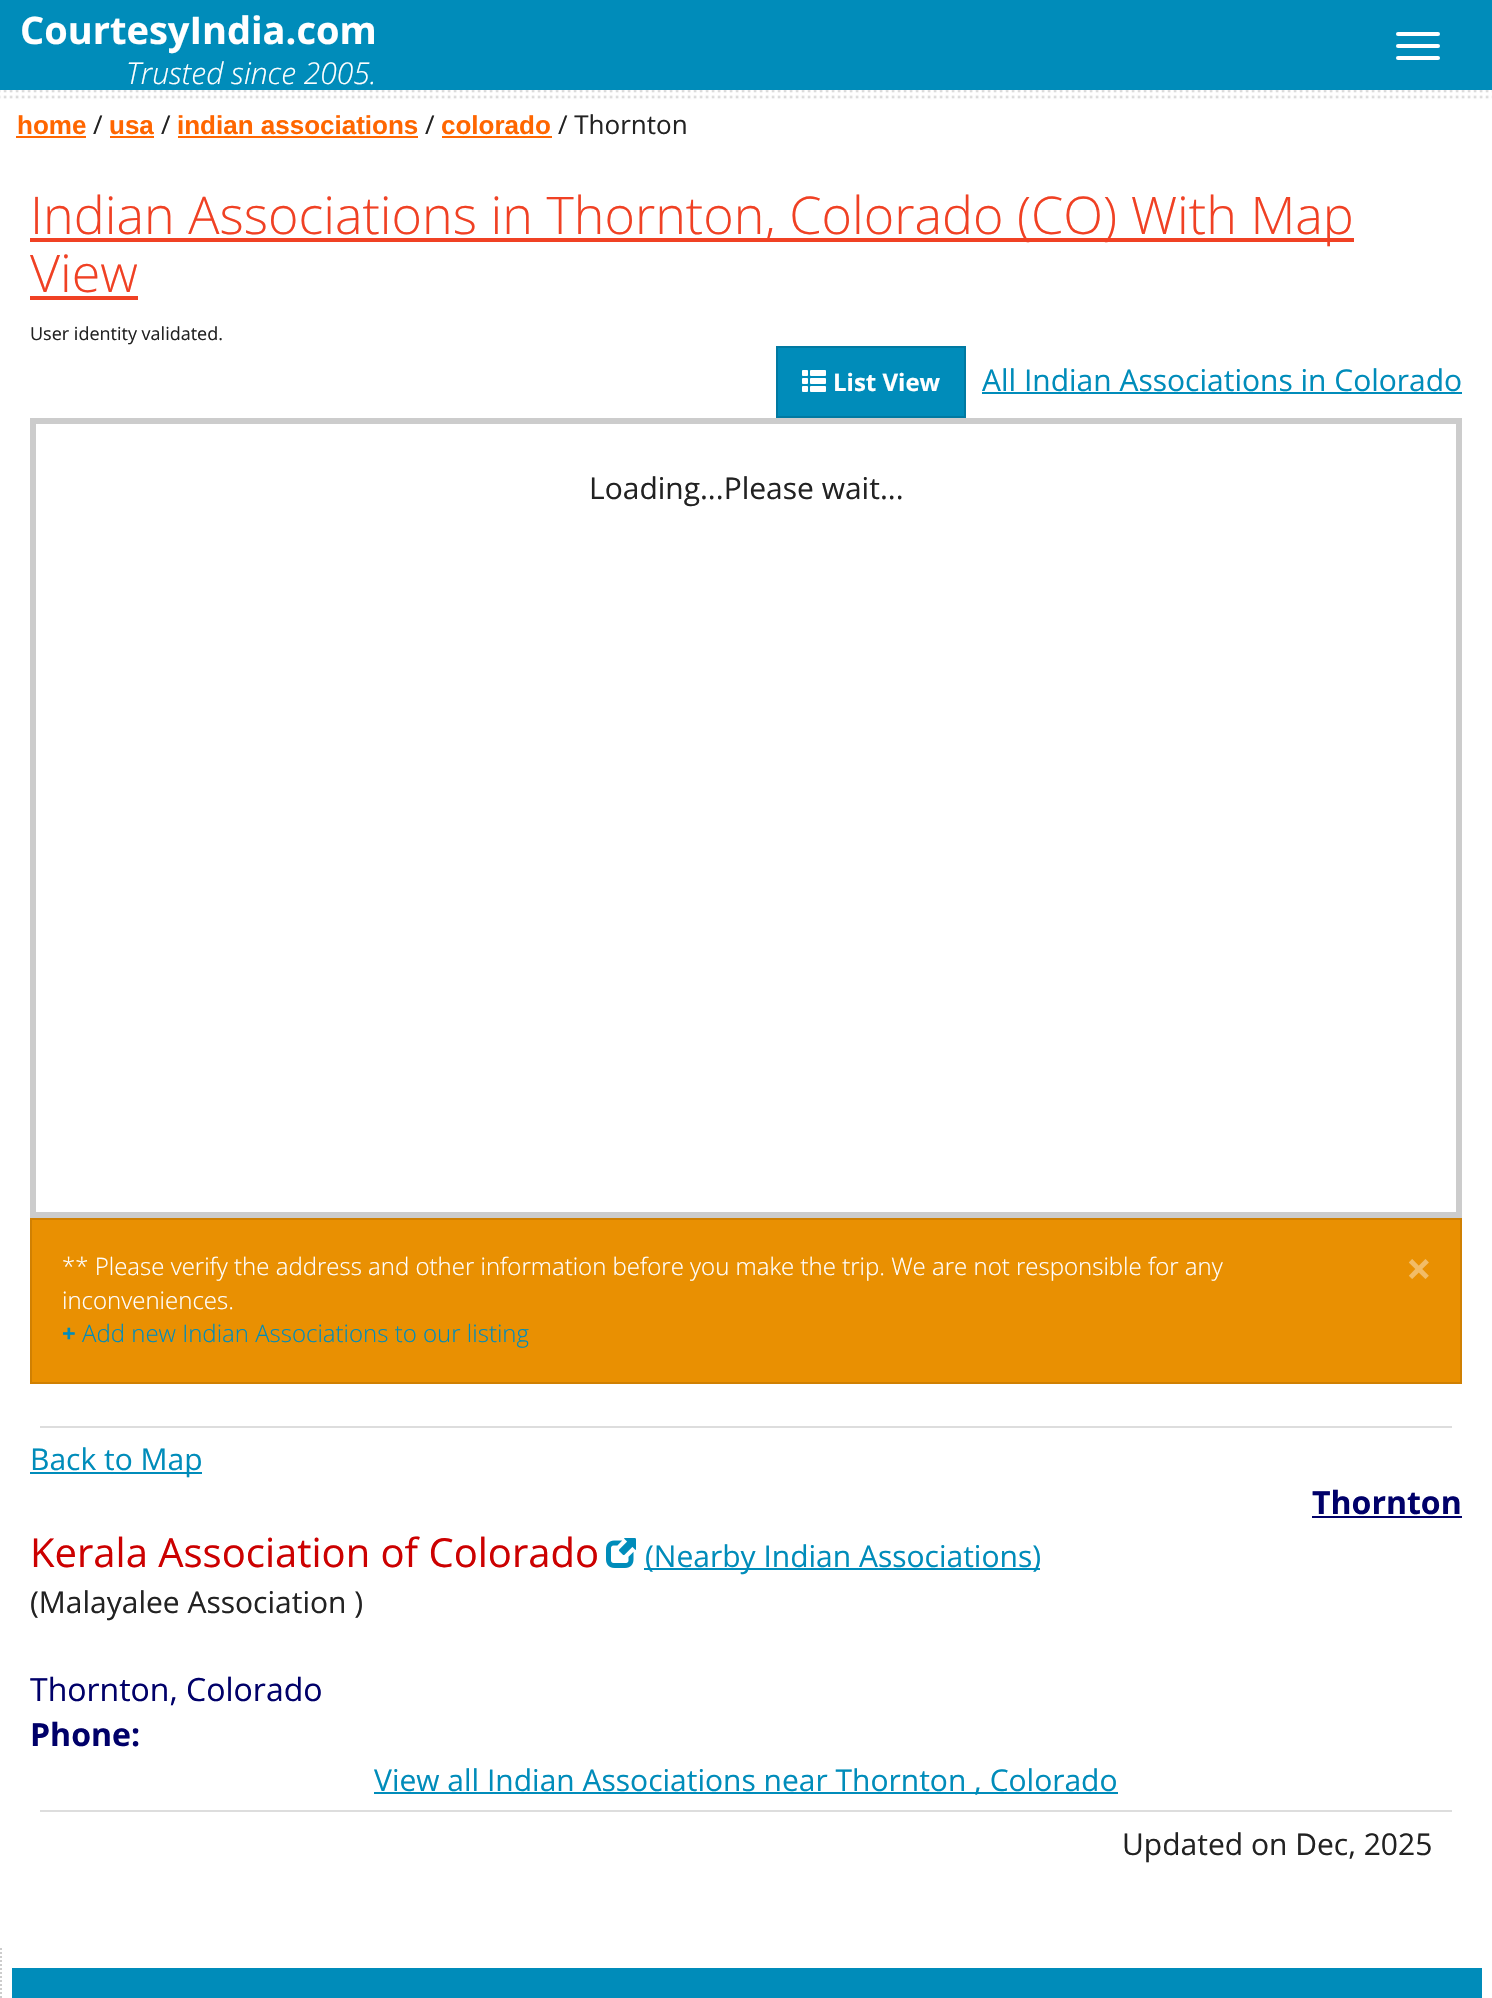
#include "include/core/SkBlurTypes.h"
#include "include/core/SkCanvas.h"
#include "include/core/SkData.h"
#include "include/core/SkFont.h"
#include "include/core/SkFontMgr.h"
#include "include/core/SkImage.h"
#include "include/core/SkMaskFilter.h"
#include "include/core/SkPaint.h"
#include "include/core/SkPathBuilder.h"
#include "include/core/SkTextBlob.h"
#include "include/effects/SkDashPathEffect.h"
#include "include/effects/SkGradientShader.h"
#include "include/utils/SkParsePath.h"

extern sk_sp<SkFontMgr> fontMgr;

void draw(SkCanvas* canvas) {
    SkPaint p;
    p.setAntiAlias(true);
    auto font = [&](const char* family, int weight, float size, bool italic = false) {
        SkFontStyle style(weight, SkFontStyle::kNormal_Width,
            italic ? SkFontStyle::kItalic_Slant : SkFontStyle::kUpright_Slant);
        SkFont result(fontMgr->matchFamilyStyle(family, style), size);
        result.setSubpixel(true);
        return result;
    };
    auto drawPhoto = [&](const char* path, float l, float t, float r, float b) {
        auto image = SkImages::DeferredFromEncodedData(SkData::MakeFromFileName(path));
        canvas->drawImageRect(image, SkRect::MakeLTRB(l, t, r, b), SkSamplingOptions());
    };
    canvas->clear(0xFFFFFFFF);
    drawPhoto("media/1.png", 0, 90, 1492, 100);
    p.setColor(0xFF008CBA);
    canvas->drawRect(SkRect::MakeLTRB(0, 0, 1492, 90), p);
    auto font1 = font("Open Sans", 700, 38);
    p.setColor(0xFFFFFFFF);
    canvas->drawString("CourtesyIndia.com", 20, 44, font1, p);
    auto font2 = font("Open Sans", 300, 30, true);
    canvas->drawString("Trusted since 2005.", 126, 84, font2, p);
    canvas->drawRoundRect(SkRect::MakeLTRB(1396, 32, 1440, 36), 2, 2, p);
    canvas->drawRoundRect(SkRect::MakeLTRB(1396, 44, 1440, 48), 2, 2, p);
    canvas->drawRoundRect(SkRect::MakeLTRB(1396, 56, 1440, 60), 2, 2, p);
    auto font3 = font("Liberation Sans", 700, 26);
    p.setColor(0xFFFF6600);
    canvas->drawString("home", 17, 134, font3, p);
    canvas->drawRect(SkRect::MakeLTRB(16, 136, 86, 138), p);
    auto font4 = font("Open Sans", 400, 26);
    p.setColor(0xFF222222);
    canvas->drawString("/", 93, 134, font4, p);
    p.setColor(0xFFFF6600);
    canvas->drawString("usa", 109, 134, font3, p);
    canvas->drawRect(SkRect::MakeLTRB(110, 136, 154, 138), p);
    p.setColor(0xFF222222);
    canvas->drawString("/", 161, 134, font4, p);
    p.setColor(0xFFFF6600);
    canvas->drawString("indian associations", 177, 134, font3, p);
    canvas->drawRect(SkRect::MakeLTRB(178, 136, 418, 138), p);
    p.setColor(0xFF222222);
    canvas->drawString("/", 425, 134, font4, p);
    p.setColor(0xFFFF6600);
    canvas->drawString("colorado", 441, 134, font3, p);
    canvas->drawRect(SkRect::MakeLTRB(442, 136, 552, 138), p);
    p.setColor(0xFF222222);
    canvas->drawString("/ Thornton", 558, 134, font4, p);
    p.setColor(0xFFF04124);
    canvas->drawRect(SkRect::MakeLTRB(30, 238, 1354, 242), p);
    auto font5 = font("Open Sans", 300, 52);
    canvas->drawString("Indian Associations in Thornton, Colorado (CO) With Map", 30, 234, font5, p);
    canvas->drawString("View", 30, 292, font5, p);
    canvas->drawRect(SkRect::MakeLTRB(30, 296, 138, 300), p);
    auto font6 = font("Open Sans", 400, 18);
    p.setColor(0xFF222222);
    canvas->drawString("User identity validated.", 30, 340, font6, p);
    p.setColor(0xFF008CBA);
    canvas->drawRect(SkRect::MakeLTRB(777, 347, 965, 417), p);
    p.setStyle(SkPaint::kStroke_Style);
    p.setStrokeWidth(2);
    p.setColor(0xFF0079A1);
    canvas->drawRect(SkRect::MakeLTRB(777, 347, 965, 417), p);
    drawPhoto("media/2.png", 802, 370, 826, 392);
    auto font7 = font("Open Sans", 700, 24);
    p.setStyle(SkPaint::kFill_Style);
    p.setColor(0xFFFFFFFF);
    canvas->drawString("List View", 833, 391, font7, p);
    auto font8 = font("Open Sans", 400, 30);
    p.setColor(0xFF008CBA);
    canvas->drawString("All Indian Associations in Colorado", 982, 391, font8, p);
    canvas->drawRect(SkRect::MakeLTRB(982, 392, 1462, 394), p);
    p.setStyle(SkPaint::kStroke_Style);
    p.setStrokeWidth(6);
    p.setColor(0xFFCCCCCC);
    canvas->drawRect(SkRect::MakeLTRB(33, 421, 1459, 1215), p);
    p.setStyle(SkPaint::kFill_Style);
    p.setColor(0xFF222222);
    canvas->drawString("Loading...Please wait...", 589, 499, font8, p);
    p.setColor(0xFFE99002);
    canvas->drawRect(SkRect::MakeLTRB(31, 1219, 1461, 1383), p);
    p.setStyle(SkPaint::kStroke_Style);
    p.setStrokeWidth(2);
    p.setColor(0xFFD08002);
    canvas->drawRect(SkRect::MakeLTRB(31, 1219, 1461, 1383), p);
    auto font9 = font("Open Sans", 300, 24);
    p.setStyle(SkPaint::kFill_Style);
    p.setColor(0xFFFFFFFF);
    canvas->drawString("** Please verify the address and other information before you make the trip. We are not responsible for any", 62, 1275, font9, p);
    canvas->drawString("inconveniences.", 62, 1309, font9, p);
    auto font10 = font("Open Sans", 700, 45);
    p.setColor(0xFFF2BC67);
    canvas->drawString("×", 1406, 1285, font10, p);
    p.setColor(0xFF008CBA);
    canvas->drawString("+", 62, 1342, font7, p);
    canvas->drawString("Add new Indian Associations to our listing", 82, 1342, font9, p);
    p.setColor(0xFFDDDDDD);
    canvas->drawRect(SkRect::MakeLTRB(40, 1426, 1452, 1428), p);
    p.setColor(0xFF008CBA);
    canvas->drawRect(SkRect::MakeLTRB(30, 1472, 202, 1474), p);
    canvas->drawString("Back to Map", 30, 1470, font8, p);
    auto font11 = font("Open Sans", 700, 32);
    p.setColor(0xFF000069);
    canvas->drawString("Thornton", 1312, 1514, font11, p);
    canvas->drawRect(SkRect::MakeLTRB(1312, 1516, 1462, 1518), p);
    auto font12 = font("Open Sans", 400, 40);
    p.setColor(0xFFCC0000);
    canvas->drawString("Kerala Association of Colorado", 30, 1567, font12, p);
    drawPhoto("media/3.png", 606, 1538, 636, 1568);
    p.setColor(0xFF008CBA);
    canvas->drawRect(SkRect::MakeLTRB(644, 1568, 1040, 1570), p);
    canvas->drawString("(Nearby Indian Associations)", 645, 1567, font8, p);
    p.setColor(0xFF222222);
    canvas->drawString("(Malayalee Association )", 30, 1613, font8, p);
    auto font13 = font("Open Sans", 400, 32);
    p.setColor(0xFF000069);
    canvas->drawString("Thornton, Colorado", 30, 1701, font13, p);
    canvas->drawString("Phone:", 30, 1746, font11, p);
    p.setColor(0xFF008CBA);
    canvas->drawRect(SkRect::MakeLTRB(374, 1792, 1118, 1794), p);
    canvas->drawString("View all Indian Associations near Thornton , Colorado", 374, 1791, font8, p);
    p.setColor(0xFFDDDDDD);
    canvas->drawRect(SkRect::MakeLTRB(40, 1810, 1452, 1812), p);
    p.setColor(0xFF222222);
    canvas->drawString("Updated on Dec, 2025", 1122, 1855, font8, p);
    p.setStyle(SkPaint::kStroke_Style);
    p.setColor(0xFFCCCCCC);
    p.setPathEffect(SkDashPathEffect::Make({{2, 2}}, 0));
    canvas->drawPath(SkPathBuilder().moveTo(1, 1948).lineTo(1, 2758).detach(), p);
    p.setPathEffect(nullptr);
    p.setColor(0xFF008CBA);
    canvas->drawRect(SkRect::MakeLTRB(13, 1969, 1481, 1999), p);
    p.setStyle(SkPaint::kFill_Style);
    canvas->drawRect(SkRect::MakeLTRB(14, 1970, 1480, 1998), p);
}
